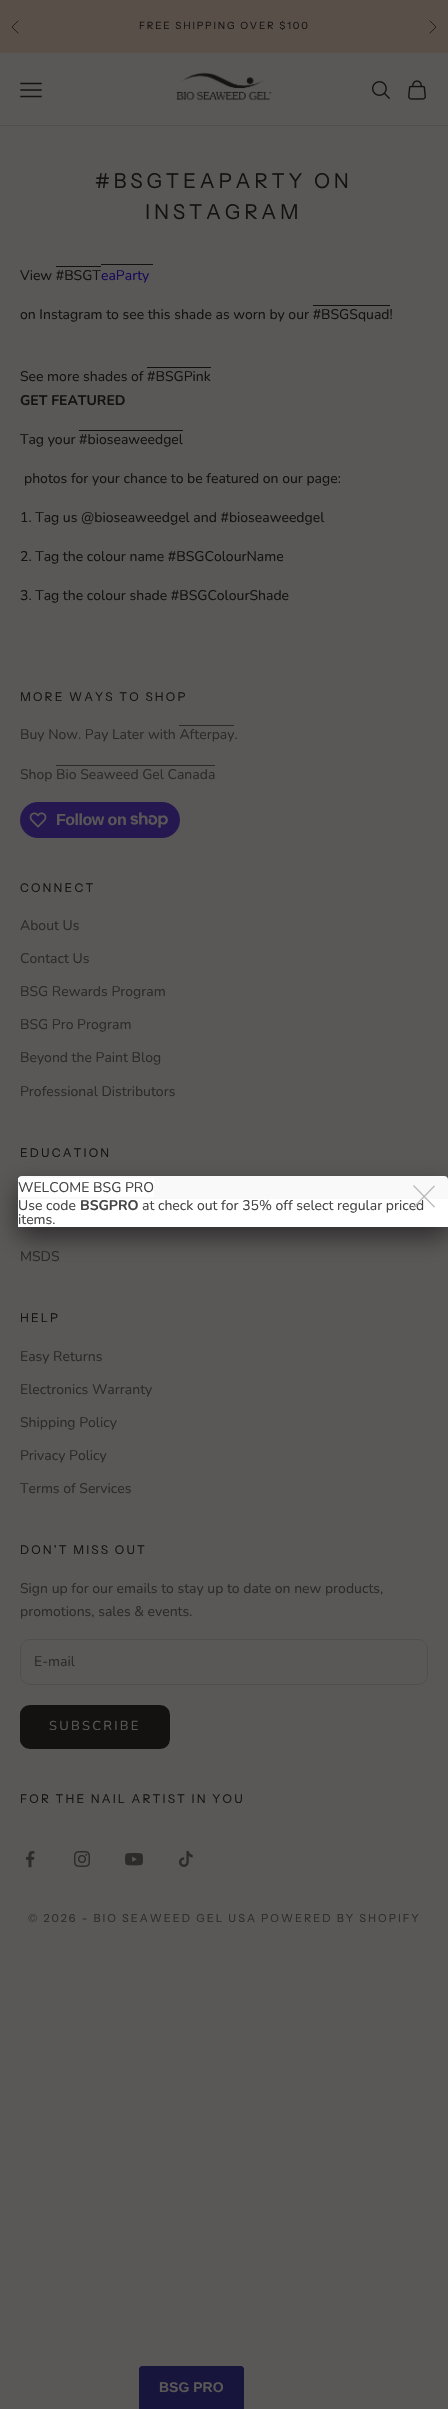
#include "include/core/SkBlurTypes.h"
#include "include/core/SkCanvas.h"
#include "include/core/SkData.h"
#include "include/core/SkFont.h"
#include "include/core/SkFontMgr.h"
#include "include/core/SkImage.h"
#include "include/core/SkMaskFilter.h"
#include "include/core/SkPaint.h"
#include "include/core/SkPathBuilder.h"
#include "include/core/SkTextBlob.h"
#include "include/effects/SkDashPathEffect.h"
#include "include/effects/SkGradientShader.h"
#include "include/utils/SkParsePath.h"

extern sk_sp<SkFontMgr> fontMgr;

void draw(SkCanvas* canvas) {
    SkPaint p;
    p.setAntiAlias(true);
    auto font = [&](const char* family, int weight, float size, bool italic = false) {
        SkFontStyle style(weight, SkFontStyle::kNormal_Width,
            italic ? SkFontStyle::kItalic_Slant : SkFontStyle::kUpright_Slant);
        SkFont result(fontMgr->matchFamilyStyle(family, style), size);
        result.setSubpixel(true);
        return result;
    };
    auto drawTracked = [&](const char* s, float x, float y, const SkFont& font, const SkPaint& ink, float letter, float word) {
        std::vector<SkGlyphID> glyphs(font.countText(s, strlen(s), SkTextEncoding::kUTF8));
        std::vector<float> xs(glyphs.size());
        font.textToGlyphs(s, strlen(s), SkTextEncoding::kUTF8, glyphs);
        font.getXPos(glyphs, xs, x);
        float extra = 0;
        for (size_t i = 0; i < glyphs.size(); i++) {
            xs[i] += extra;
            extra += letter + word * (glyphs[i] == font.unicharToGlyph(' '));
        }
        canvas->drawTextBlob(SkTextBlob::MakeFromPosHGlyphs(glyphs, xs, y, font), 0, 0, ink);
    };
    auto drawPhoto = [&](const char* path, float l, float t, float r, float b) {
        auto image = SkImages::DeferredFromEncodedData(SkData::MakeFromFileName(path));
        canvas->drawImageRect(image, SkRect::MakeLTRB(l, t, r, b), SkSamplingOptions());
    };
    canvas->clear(0xFF5A5757);
    p.setColor(0xFF584F49);
    canvas->drawRect(SkRect::MakeLTRB(0, 0, 448, 53), p);
    p.setStyle(SkPaint::kStroke_Style);
    p.setStrokeWidth(0.8f);
    p.setStrokeCap(SkPaint::kSquare_Cap);
    p.setColor(0xFF141111);
    canvas->drawPath(SkPathBuilder().moveTo(18, 21).lineTo(12, 27).lineTo(18, 33).detach(), p);
    auto font1 = font("Instrument Sans", 400, 10);
    p.setStyle(SkPaint::kFill_Style);
    drawTracked("FREE SHIPPING OVER $100", 139, 29, font1, p, 1.8f, 0);
    p.setStyle(SkPaint::kStroke_Style);
    canvas->drawPath(SkPathBuilder().moveTo(430, 33).lineTo(436, 27).lineTo(430, 21).detach(), p);
    p.setStyle(SkPaint::kFill_Style);
    p.setColor(0xFF504D4D);
    canvas->drawRect(SkRect::MakeLTRB(0, 125, 448, 126), p);
    p.setStyle(SkPaint::kStroke_Style);
    p.setStrokeWidth(1.4f);
    p.setColor(0xFF141111);
    canvas->drawPath(SkPathBuilder().moveTo(21, 96.5f).lineTo(41, 96.5f).moveTo(21, 90).lineTo(41, 90).moveTo(21, 83.5f).lineTo(41, 83.5f).detach(), p);
    drawPhoto("media/1.png", 176, 72, 272, 101);
    drawPhoto("media/2.png", 372, 81, 390, 99);
    drawPhoto("media/3.png", 408, 80, 426, 100);
    auto font2 = font("Instrument Sans", 400, 20.5f);
    p.setStyle(SkPaint::kFill_Style);
    drawTracked("#BSGTEAPARTY ON", 95, 188, font2, p, 3.75f, 0);
    drawTracked("INSTAGRAM", 145, 219, font2, p, 3.75f, 0);
    auto font3 = font("Nunito", 400, 14);
    canvas->drawString("View #BSGT", 20, 280, font3, p);
    canvas->drawRect(SkRect::MakeLTRB(56, 266, 101, 267), p);
    canvas->drawRect(SkRect::MakeLTRB(101, 264, 153, 265), p);
    p.setColor(0xFF180857);
    canvas->drawString("eaParty", 101, 280, font3, p);
    p.setColor(0xFF141111);
    canvas->drawRect(SkRect::MakeLTRB(313, 305, 390, 306), p);
    canvas->drawString("on Instagram to see this shade as worn by our #BSGSquad!", 20, 319, font3, p);
    canvas->drawRect(SkRect::MakeLTRB(147, 367, 211, 368), p);
    canvas->drawString("See more shades of #BSGPink", 20, 381, font3, p);
    auto font4 = font("Nunito", 700, 14);
    canvas->drawString("GET FEATURED", 20, 405, font4, p);
    canvas->drawRect(SkRect::MakeLTRB(79, 430, 183, 431), p);
    {
        const struct { const char* s; float x, y; } items[] = {
            {"Tag your #bioseaweedgel", 20, 444},
            {"photos for your chance to be featured on our page:", 24, 483},
            {"1. Tag us @bioseaweedgel and #bioseaweedgel", 20, 522},
            {"2. Tag the colour name #BSGColourName", 20, 561},
            {"3. Tag the colour shade #BSGColourShade", 20, 600},
        };
        for (auto [s, x, y] : items) {
            canvas->drawString(s, x, y, font3, p);
        }
    }
    auto font5 = font("Instrument Sans", 400, 12);
    drawTracked("MORE WAYS TO SHOP", 20, 701, font5, p, 2.15f, 0);
    p.setColor(0xFF2C2929);
    canvas->drawRect(SkRect::MakeLTRB(179, 725, 234, 726), p);
    canvas->drawString("Buy Now. Pay Later with Afterpay.", 20, 739, font3, p);
    canvas->drawRect(SkRect::MakeLTRB(56, 765, 215, 766), p);
    canvas->drawString("Shop Bio Seaweed Gel Canada", 20, 779, font3, p);
    p.setColor(0xFF251851);
    canvas->drawRoundRect(SkRect::MakeLTRB(20, 802, 180, 838), 18, 18, p);
    drawPhoto("media/4.png", 29, 812, 47, 828);
    auto font6 = font("Liberation Sans", 700, 16);
    p.setColor(0xFF5A5757);
    drawTracked("Follow on", 56, 825, font6, p, -0.5f, 0);
    drawPhoto("media/5.png", 130, 812, 168, 828);
    p.setColor(0xFF141111);
    drawTracked("CONNECT", 20, 892, font5, p, 2.15f, 0);
    p.setColor(0xFF2C2929);
    {
        const struct { const char* s; float x, y; } items[] = {
            {"About Us", 20, 930},
            {"Contact Us", 20, 963},
            {"BSG Rewards Program", 20, 996},
            {"BSG Pro Program", 20, 1029},
            {"Beyond the Paint Blog", 20, 1062},
            {"Professional Distributors", 20, 1096},
        };
        for (auto [s, x, y] : items) {
            canvas->drawString(s, x, y, font3, p);
        }
    }
    p.setColor(0xFF141111);
    drawTracked("EDUCATION", 20, 1157, font5, p, 2.15f, 0);
    p.setColor(0xFF2C2929);
    canvas->drawString("MSDS", 20, 1261, font3, p);
    p.setColor(0xFF141111);
    drawTracked("HELP", 20, 1322, font5, p, 2.15f, 0);
    p.setColor(0xFF2C2929);
    {
        const struct { const char* s; float x, y; } items[] = {
            {"Easy Returns", 20, 1361},
            {"Electronics Warranty", 20, 1394},
            {"Shipping Policy", 20, 1427},
            {"Privacy Policy", 20, 1460},
            {"Terms of Services", 20, 1493},
        };
        for (auto [s, x, y] : items) {
            canvas->drawString(s, x, y, font3, p);
        }
    }
    p.setColor(0xFF141111);
    drawTracked("DON'T MISS OUT", 20, 1554, font5, p, 2.15f, 0);
    p.setColor(0xFF2C2929);
    canvas->drawString("Sign up for our emails to stay up to date on new products,", 20, 1593, font3, p);
    canvas->drawString("promotions, sales & events.", 20, 1616, font3, p);
    p.setStyle(SkPaint::kStroke_Style);
    p.setStrokeWidth(1);
    p.setStrokeCap(SkPaint::kButt_Cap);
    p.setColor(0xFF504D4D);
    canvas->drawRoundRect(SkRect::MakeLTRB(20.5f, 1639.5f, 427.5f, 1684.5f), 9.5f, 9.5f, p);
    p.setStyle(SkPaint::kFill_Style);
    p.setColor(0xFF2C2929);
    canvas->drawString("E-mail", 34, 1666, font3, p);
    canvas->save();
    canvas->clipPath(SkPathBuilder().moveTo(30, 1705).lineTo(160, 1705).cubicTo(165.5f, 1705, 170, 1709.5f, 170, 1715).lineTo(170, 1739).cubicTo(170, 1744.5f, 165.5f, 1749, 160, 1749).lineTo(30, 1749).cubicTo(24.5f, 1749, 20, 1744.5f, 20, 1739).lineTo(20, 1715).cubicTo(20, 1709.5f, 24.5f, 1705, 30, 1705).close().detach(), true);
    p.setColor(0xFF141111);
    canvas->drawRect(SkRect::MakeLTRB(20, 1706, 169, 1748), p);
    canvas->restore();
    p.setStyle(SkPaint::kStroke_Style);
    canvas->drawRoundRect(SkRect::MakeLTRB(20.5f, 1705.5f, 169.5f, 1748.5f), 9.5f, 9.5f, p);
    auto font7 = font("Nunito", 400, 13);
    p.setStyle(SkPaint::kFill_Style);
    p.setColor(0xFF5A5757);
    drawTracked("SUBSCRIBE", 49, 1730, font7, p, 2.25f, 0);
    p.setColor(0xFF141111);
    drawTracked("FOR THE NAIL ARTIST IN YOU", 20, 1803, font5, p, 2.15f, 0);
    drawPhoto("media/6.png", 26, 1851, 35, 1868);
    drawPhoto("media/7.png", 74, 1851, 90, 1867);
    drawPhoto("media/8.png", 125, 1853, 143, 1866);
    drawPhoto("media/9.png", 179, 1851, 193, 1867);
    auto font8 = font("Instrument Sans", 400, 11);
    p.setColor(0xFF2C2929);
    drawTracked("© 2026 - BIO SEAWEED GEL USA POWERED BY SHOPIFY", 28, 1922, font8, p, 2, 0);
    p.setColor(0x80000000);
    p.setMaskFilter(SkMaskFilter::MakeBlur(kNormal_SkBlurStyle, 12.5f));
    canvas->drawRoundRect(SkRect::MakeLTRB(18, 1186, 448, 1237), 4, 4, p);
    p.setMaskFilter(nullptr);
    p.setColor(0xFFF9F9F9);
    canvas->drawRoundRect(SkRect::MakeLTRB(18, 1176, 448, 1227), 4, 4, p);
    p.setColor(0xFFFFFFFF);
    canvas->drawRect(SkRect::MakeLTRB(18, 1178, 154, 1197), p);
    p.setColor(0xFF444444);
    canvas->drawString("WELCOME BSG PRO", 18, 1192, font3, p);
    p.setColor(0xFFFFFFFF);
    canvas->drawRect(SkRect::MakeLTRB(18, 1199, 448, 1227), p);
    p.setColor(0xFF444444);
    canvas->drawString("Use code", 18, 1210, font3, p);
    canvas->drawString("BSGPRO", 80, 1210, font4, p);
    canvas->drawString("at check out for 35% off select regular priced", 142, 1210, font3, p);
    canvas->drawString("items.", 18, 1224, font3, p);
    drawPhoto("media/10.png", 413, 1185, 435, 1208);
    p.setColor(0xFF17153C);
    canvas->drawPath(SkPathBuilder().moveTo(142, 2366).lineTo(241, 2366).cubicTo(242.5f, 2366, 244, 2367.5f, 244, 2369).lineTo(244, 2409).lineTo(139, 2409).lineTo(139, 2369).cubicTo(139, 2367.5f, 140.5f, 2366, 142, 2366).close().detach(), p);
    auto font9 = font("Liberation Sans", 700, 14);
    p.setColor(0xFF5A5757);
    canvas->drawString("BSG PRO", 159, 2392, font9, p);
}
